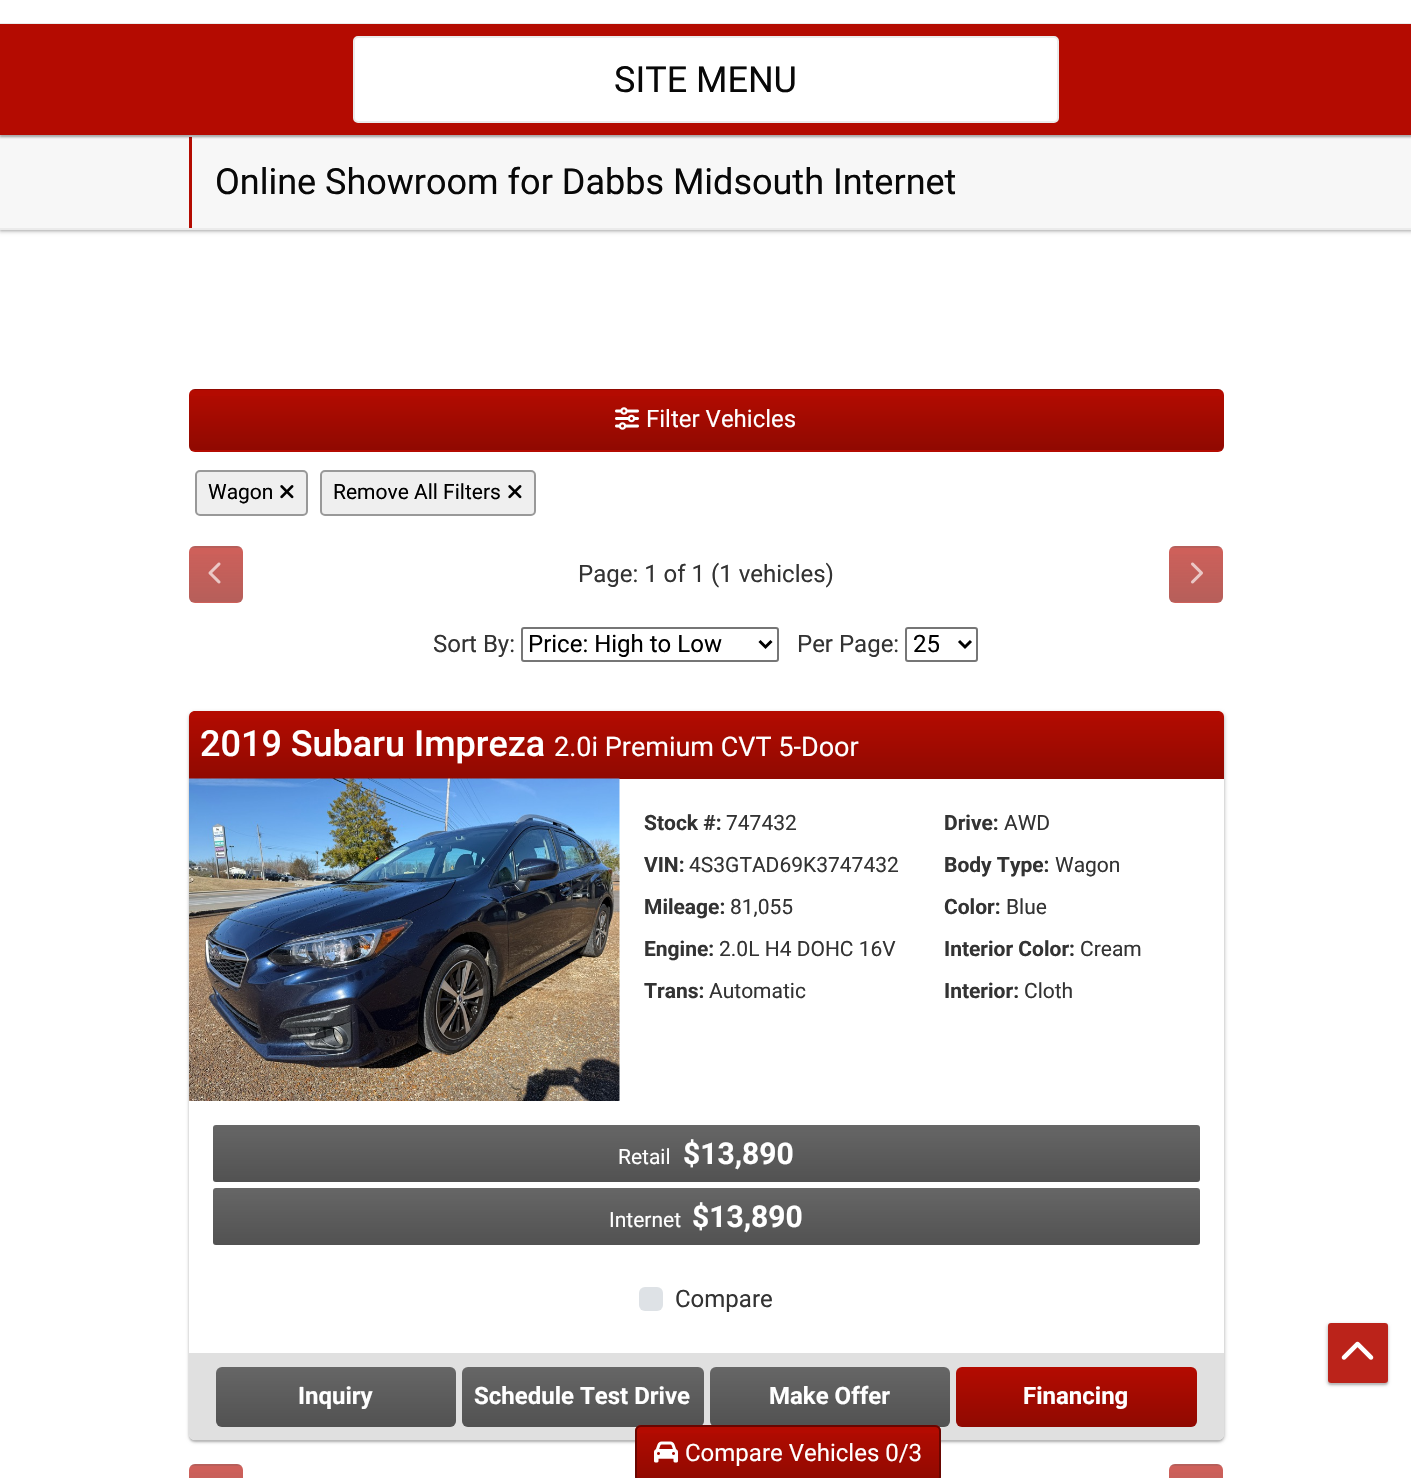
#include "include/core/SkBlurTypes.h"
#include "include/core/SkCanvas.h"
#include "include/core/SkData.h"
#include "include/core/SkFont.h"
#include "include/core/SkFontMgr.h"
#include "include/core/SkImage.h"
#include "include/core/SkMaskFilter.h"
#include "include/core/SkPaint.h"
#include "include/core/SkPathBuilder.h"
#include "include/core/SkTextBlob.h"
#include "include/effects/SkDashPathEffect.h"
#include "include/effects/SkGradientShader.h"
#include "include/utils/SkParsePath.h"

extern sk_sp<SkFontMgr> fontMgr;

void draw(SkCanvas* canvas) {
    SkPaint p;
    p.setAntiAlias(true);
    auto font = [&](const char* family, int weight, float size, bool italic = false) {
        SkFontStyle style(weight, SkFontStyle::kNormal_Width,
            italic ? SkFontStyle::kItalic_Slant : SkFontStyle::kUpright_Slant);
        SkFont result(fontMgr->matchFamilyStyle(family, style), size);
        result.setSubpixel(true);
        return result;
    };
    auto drawPhoto = [&](const char* path, float l, float t, float r, float b) {
        auto image = SkImages::DeferredFromEncodedData(SkData::MakeFromFileName(path));
        canvas->drawImageRect(image, SkRect::MakeLTRB(l, t, r, b), SkSamplingOptions());
    };
    canvas->clear(0xFFFFFFFF);
    p.setColor(0x33000000);
    p.setMaskFilter(SkMaskFilter::MakeBlur(kNormal_SkBlurStyle, 1));
    canvas->drawRect(SkRect::MakeLTRB(0, 137, 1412, 231), p);
    p.setMaskFilter(nullptr);
    p.setColor(0x1A000000);
    p.setMaskFilter(SkMaskFilter::MakeBlur(kNormal_SkBlurStyle, 1.5f));
    canvas->drawRect(SkRect::MakeLTRB(-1, 135, 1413, 233), p);
    p.setMaskFilter(nullptr);
    {
        const struct { float l, t, r, b; SkColor color; } items[] = {
            {0, 137, 1411, 228, 0xFFF7F7F7},
            {0, 135, 1411, 137, 0xFFEBEBEB},
            {189, 137, 192, 228, 0xFFB40B01},
        };
        for (auto [l, t, r, b, color] : items) {
            p.setColor(color);
            canvas->drawRect(SkRect::MakeLTRB(l, t, r, b), p);
        }
    }
    canvas->save();
    canvas->clipRect(SkRect::MakeLTRB(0, 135, 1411, 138));
    p.setColor(0x33000000);
    p.setMaskFilter(SkMaskFilter::MakeBlur(kNormal_SkBlurStyle, 1));
    canvas->drawRect(SkRect::MakeLTRB(0, -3, 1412, 137), p);
    p.setMaskFilter(nullptr);
    canvas->restore();
    canvas->save();
    canvas->clipRect(SkRect::MakeLTRB(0, 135, 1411, 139));
    p.setColor(0x1A000000);
    p.setMaskFilter(SkMaskFilter::MakeBlur(kNormal_SkBlurStyle, 1.5f));
    canvas->drawRect(SkRect::MakeLTRB(-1, -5, 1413, 138), p);
    p.setMaskFilter(nullptr);
    canvas->restore();
    p.setColor(0xFFEBEBEB);
    canvas->drawRect(SkRect::MakeLTRB(0, 23, 1411, 24), p);
    p.setColor(0xFFB40B01);
    canvas->drawRect(SkRect::MakeLTRB(0, 24, 1411, 135), p);
    p.setColor(0xFFFFFFFF);
    canvas->drawRoundRect(SkRect::MakeLTRB(354, 37, 1058, 122), 4, 4, p);
    p.setStyle(SkPaint::kStroke_Style);
    p.setStrokeWidth(2);
    p.setColor(0xFFEBEBEB);
    canvas->drawRoundRect(SkRect::MakeLTRB(354, 37, 1058, 122), 4, 4, p);
    auto font1 = font("Roboto", 400, 36);
    p.setStyle(SkPaint::kFill_Style);
    p.setColor(0xFF080808);
    canvas->drawString("SITE MENU", 614, 92, font1, p);
    p.setColor(0xFFEBEBEB);
    canvas->drawRect(SkRect::MakeLTRB(0, 228, 1411, 230), p);
    p.setColor(0xFF080808);
    canvas->drawString("Online Showroom for Dabbs Midsouth Internet", 215, 194, font1, p);
    p.setColor(0xFFB40B01);
    canvas->drawRoundRect(SkRect::MakeLTRB(189, 389, 1224, 452), 6, 6, p);
    canvas->save();
    canvas->clipPath(SkPathBuilder().moveTo(195, 389).lineTo(1218, 389).cubicTo(1221.5f, 389, 1224, 391.5f, 1224, 395).lineTo(1224, 446).cubicTo(1224, 449.5f, 1221.5f, 452, 1218, 452).lineTo(195, 452).cubicTo(191.5f, 452, 189, 449.5f, 189, 446).lineTo(189, 395).cubicTo(189, 391.5f, 191.5f, 389, 195, 389).close().detach(), true);
    {
        const SkColor colors[] = {0x00000000, 0x33000000};
        const float stops[] = {0, 1};
        const SkPoint ends[] = {{707, 330}, {707, 390}};
        p.setShader(SkGradientShader::MakeLinear(ends, colors, stops, 2, SkTileMode::kClamp));
        p.setAlpha(255);
    }
    canvas->drawRect(SkRect::MakeLTRB(189, 389, 1224, 390), p);
    {
        const SkColor colors[] = {0x00000000, 0x33000000};
        const float stops[] = {0, 1};
        const SkPoint ends[] = {{707, 390}, {707, 450}};
        p.setShader(SkGradientShader::MakeLinear(ends, colors, stops, 2, SkTileMode::kClamp));
        p.setAlpha(255);
    }
    canvas->drawRect(SkRect::MakeLTRB(189, 396, 1224, 450), p);
    canvas->restore();
    drawPhoto("media/1.png", 615, 407, 639, 430);
    auto font2 = font("Roboto", 400, 24);
    p.setShader(nullptr);
    p.setColor(0xFFFFFFFF);
    canvas->drawString("Filter Vehicles", 646, 427, font2, p);
    p.setColor(0xFFEFEFEF);
    canvas->drawRoundRect(SkRect::MakeLTRB(196, 471, 307, 515), 4, 4, p);
    p.setStyle(SkPaint::kStroke_Style);
    p.setColor(0xFF999999);
    canvas->drawRoundRect(SkRect::MakeLTRB(196, 471, 307, 515), 4, 4, p);
    auto font3 = font("Roboto", 400, 21);
    p.setStyle(SkPaint::kFill_Style);
    p.setColor(0xFF000000);
    canvas->drawString("Wagon", 208, 499, font3, p);
    drawPhoto("media/2.png", 280, 485, 294, 499);
    p.setColor(0xFFEFEFEF);
    canvas->drawRoundRect(SkRect::MakeLTRB(321, 471, 535, 515), 4, 4, p);
    p.setStyle(SkPaint::kStroke_Style);
    p.setColor(0xFF999999);
    canvas->drawRoundRect(SkRect::MakeLTRB(321, 471, 535, 515), 4, 4, p);
    p.setStyle(SkPaint::kFill_Style);
    p.setColor(0xFF000000);
    canvas->drawString("Remove All Filters", 333, 499, font3, p);
    drawPhoto("media/2.png", 508, 485, 522, 499);
    p.setColor(0xFFCE605A);
    canvas->drawRoundRect(SkRect::MakeLTRB(189, 546, 243, 603), 6, 6, p);
    canvas->save();
    canvas->clipPath(SkPathBuilder().moveTo(195, 546).lineTo(237, 546).cubicTo(240.5f, 546, 243, 548.5f, 243, 552).lineTo(243, 597).cubicTo(243, 600.5f, 240.5f, 603, 237, 603).lineTo(195, 603).cubicTo(191.5f, 603, 189, 600.5f, 189, 597).lineTo(189, 552).cubicTo(189, 548.5f, 191.5f, 546, 195, 546).close().detach(), true);
    {
        const SkColor colors[] = {0x00595959, 0x33595959};
        const float stops[] = {0, 1};
        const SkPoint ends[] = {{216, 494}, {216, 548}};
        p.setShader(SkGradientShader::MakeLinear(ends, colors, stops, 2, SkTileMode::kClamp));
        p.setAlpha(255);
    }
    canvas->drawRect(SkRect::MakeLTRB(189, 546, 243, 548), p);
    {
        const SkColor colors[] = {0x00595959, 0x33595959};
        const float stops[] = {0, 1};
        const SkPoint ends[] = {{216, 548}, {216, 602}};
        p.setShader(SkGradientShader::MakeLinear(ends, colors, stops, 2, SkTileMode::kClamp));
        p.setAlpha(255);
    }
    canvas->drawRect(SkRect::MakeLTRB(189, 554, 243, 602), p);
    canvas->restore();
    drawPhoto("media/3.png", 208, 562, 221, 584);
    p.setShader(nullptr);
    p.setColor(0xFF333333);
    canvas->drawString("Page: 1 of 1 (1 vehicles)", 578, 582, font2, p);
    p.setColor(0xFFCE605A);
    canvas->drawRoundRect(SkRect::MakeLTRB(1169, 546, 1223, 603), 6, 6, p);
    canvas->save();
    canvas->clipPath(SkPathBuilder().moveTo(1175, 546).lineTo(1217, 546).cubicTo(1220.5f, 546, 1223, 548.5f, 1223, 552).lineTo(1223, 597).cubicTo(1223, 600.5f, 1220.5f, 603, 1217, 603).lineTo(1175, 603).cubicTo(1171.5f, 603, 1169, 600.5f, 1169, 597).lineTo(1169, 552).cubicTo(1169, 548.5f, 1171.5f, 546, 1175, 546).close().detach(), true);
    {
        const SkColor colors[] = {0x00595959, 0x33595959};
        const float stops[] = {0, 1};
        const SkPoint ends[] = {{1196, 494}, {1196, 548}};
        p.setShader(SkGradientShader::MakeLinear(ends, colors, stops, 2, SkTileMode::kClamp));
        p.setAlpha(255);
    }
    canvas->drawRect(SkRect::MakeLTRB(1169, 546, 1223, 548), p);
    {
        const SkColor colors[] = {0x00595959, 0x33595959};
        const float stops[] = {0, 1};
        const SkPoint ends[] = {{1196, 548}, {1196, 602}};
        p.setShader(SkGradientShader::MakeLinear(ends, colors, stops, 2, SkTileMode::kClamp));
        p.setAlpha(255);
    }
    canvas->drawRect(SkRect::MakeLTRB(1169, 554, 1223, 602), p);
    canvas->restore();
    drawPhoto("media/4.png", 1191, 562, 1203, 584);
    p.setShader(nullptr);
    p.setColor(0xFF333333);
    canvas->drawString("Sort By:", 433, 652, font2, p);
    p.setStyle(SkPaint::kStroke_Style);
    p.setColor(0xFF767676);
    canvas->drawRoundRect(SkRect::MakeLTRB(522, 628, 778, 661), 2, 2, p);
    p.setStrokeWidth(3);
    p.setColor(0xFF000000);
    canvas->drawPath(SkPathBuilder().moveTo(759.5f, 641).lineTo(765.5f, 647).lineTo(771.5f, 641).detach(), p);
    p.setStyle(SkPaint::kFill_Style);
    canvas->drawString("Price: High to Low", 528, 652, font2, p);
    p.setColor(0xFF333333);
    canvas->drawString("Per Page:", 797, 652, font2, p);
    p.setStyle(SkPaint::kStroke_Style);
    p.setStrokeWidth(2);
    p.setColor(0xFF767676);
    canvas->drawRoundRect(SkRect::MakeLTRB(906, 628, 977, 661), 2, 2, p);
    p.setStrokeWidth(3);
    p.setColor(0xFF000000);
    canvas->drawPath(SkPathBuilder().moveTo(959, 641).lineTo(965, 647).lineTo(971, 641).detach(), p);
    p.setStyle(SkPaint::kFill_Style);
    canvas->drawString("25", 913, 652, font2, p);
    canvas->save();
    canvas->clipPath(SkPathBuilder(SkPathFillType::kEvenOdd).moveTo(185, 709).lineTo(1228, 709).lineTo(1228, 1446).lineTo(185, 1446).close().moveTo(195, 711).lineTo(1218, 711).cubicTo(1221.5f, 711, 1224, 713.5f, 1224, 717).lineTo(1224, 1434).cubicTo(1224, 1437.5f, 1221.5f, 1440, 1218, 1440).lineTo(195, 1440).cubicTo(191.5f, 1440, 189, 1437.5f, 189, 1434).lineTo(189, 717).cubicTo(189, 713.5f, 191.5f, 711, 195, 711).close().detach(), true);
    p.setColor(0x33000000);
    p.setMaskFilter(SkMaskFilter::MakeBlur(kNormal_SkBlurStyle, 1));
    canvas->drawRoundRect(SkRect::MakeLTRB(189, 713, 1224, 1442), 6, 6, p);
    p.setMaskFilter(nullptr);
    canvas->restore();
    canvas->save();
    canvas->clipPath(SkPathBuilder(SkPathFillType::kEvenOdd).moveTo(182, 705).lineTo(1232, 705).lineTo(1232, 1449).lineTo(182, 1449).close().moveTo(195, 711).lineTo(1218, 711).cubicTo(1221.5f, 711, 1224, 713.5f, 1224, 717).lineTo(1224, 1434).cubicTo(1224, 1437.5f, 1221.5f, 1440, 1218, 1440).lineTo(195, 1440).cubicTo(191.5f, 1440, 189, 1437.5f, 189, 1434).lineTo(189, 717).cubicTo(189, 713.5f, 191.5f, 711, 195, 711).close().detach(), true);
    p.setColor(0x1A000000);
    p.setMaskFilter(SkMaskFilter::MakeBlur(kNormal_SkBlurStyle, 1.5f));
    canvas->drawRoundRect(SkRect::MakeLTRB(188, 711, 1226, 1443), 8, 8, p);
    p.setMaskFilter(nullptr);
    canvas->restore();
    p.setColor(0x99FFFFFF);
    canvas->drawRoundRect(SkRect::MakeLTRB(189, 711, 1224, 1440), 6, 6, p);
    p.setColor(0xFFB40B01);
    canvas->drawPath(SkPathBuilder().moveTo(195, 711).lineTo(1218, 711).cubicTo(1221.5f, 711, 1224, 713.5f, 1224, 717).lineTo(1224, 779).lineTo(189, 779).lineTo(189, 717).cubicTo(189, 713.5f, 191.5f, 711, 195, 711).close().detach(), p);
    {
        const SkColor colors[] = {0x00000000, 0x33000000};
        const float stops[] = {0, 1};
        const SkPoint ends[] = {{707, 711}, {707, 779}};
        p.setShader(SkGradientShader::MakeLinear(ends, colors, stops, 2, SkTileMode::kClamp));
        p.setAlpha(255);
    }
    canvas->drawRect(SkRect::MakeLTRB(189, 718, 1224, 779), p);
    auto font4 = font("Roboto", 500, 36);
    p.setShader(nullptr);
    p.setColor(0xFFFFFFFF);
    canvas->drawString("2019 Subaru Impreza", 200, 756, font4, p);
    auto font5 = font("Roboto", 400, 27);
    canvas->drawString("2.0i Premium CVT 5-Door", 554, 756, font5, p);
    drawPhoto("media/5.png", 189, 778, 620, 1101);
    auto font6 = font("Roboto", 700, 21);
    p.setColor(0xFF333333);
    canvas->drawString("Stock #:", 644, 830, font6, p);
    canvas->drawString("747432", 726, 830, font3, p);
    canvas->drawString("VIN:", 644, 872, font6, p);
    canvas->drawString("4S3GTAD69K3747432", 689, 872, font3, p);
    canvas->drawString("Mileage:", 644, 914, font6, p);
    canvas->drawString("81,055", 730, 914, font3, p);
    canvas->drawString("Engine:", 644, 956, font6, p);
    canvas->drawString("2.0L H4 DOHC 16V", 719, 956, font3, p);
    canvas->drawString("Trans:", 644, 998, font6, p);
    canvas->drawString("Automatic", 709, 998, font3, p);
    canvas->drawString("Drive:", 944, 830, font6, p);
    canvas->drawString("AWD", 1004, 830, font3, p);
    canvas->drawString("Body Type:", 944, 872, font6, p);
    canvas->drawString("Wagon", 1055, 872, font3, p);
    canvas->drawString("Color:", 944, 914, font6, p);
    canvas->drawString("Blue", 1006, 914, font3, p);
    canvas->drawString("Interior Color:", 944, 956, font6, p);
    canvas->drawString("Cream", 1080, 956, font3, p);
    canvas->drawString("Interior:", 944, 998, font6, p);
    canvas->drawString("Cloth", 1024, 998, font3, p);
    p.setColor(0xFF666666);
    canvas->drawRoundRect(SkRect::MakeLTRB(213, 1125, 1200, 1182), 3, 3, p);
    {
        const SkColor colors[] = {0x00000000, 0x33000000};
        const float stops[] = {0, 1};
        const SkPoint ends[] = {{707, 1125}, {707, 1182}};
        p.setShader(SkGradientShader::MakeLinear(ends, colors, stops, 2, SkTileMode::kClamp));
        p.setAlpha(255);
    }
    canvas->drawRoundRect(SkRect::MakeLTRB(213, 1125, 1200, 1182), 3, 3, p);
    p.setShader(nullptr);
    p.setColor(0xFFFFFFFF);
    canvas->drawString("Retail", 618, 1164, font3, p);
    auto font7 = font("Roboto", 700, 30);
    canvas->drawString("$13,890", 683, 1164, font7, p);
    p.setColor(0xFF666666);
    canvas->drawRoundRect(SkRect::MakeLTRB(213, 1188, 1200, 1245), 3, 3, p);
    {
        const SkColor colors[] = {0x00000000, 0x33000000};
        const float stops[] = {0, 1};
        const SkPoint ends[] = {{707, 1188}, {707, 1245}};
        p.setShader(SkGradientShader::MakeLinear(ends, colors, stops, 2, SkTileMode::kClamp));
        p.setAlpha(255);
    }
    canvas->drawRoundRect(SkRect::MakeLTRB(213, 1188, 1200, 1245), 3, 3, p);
    p.setShader(nullptr);
    p.setColor(0xFFFFFFFF);
    canvas->drawString("Internet", 609, 1227, font3, p);
    canvas->drawString("$13,890", 692, 1227, font7, p);
    p.setColor(0xFFDEE2E6);
    canvas->drawRoundRect(SkRect::MakeLTRB(639, 1287, 663, 1311), 6, 6, p);
    p.setColor(0xFF333333);
    canvas->drawString("Compare", 675, 1307, font2, p);
    p.setColor(0x99CCCCCC);
    canvas->drawPath(SkPathBuilder().moveTo(189, 1353).lineTo(1224, 1353).lineTo(1224, 1434).cubicTo(1224, 1437.5f, 1221.5f, 1440, 1218, 1440).lineTo(195, 1440).cubicTo(191.5f, 1440, 189, 1437.5f, 189, 1434).close().detach(), p);
    p.setColor(0xFF666666);
    canvas->drawRoundRect(SkRect::MakeLTRB(216, 1367, 456, 1427), 6, 6, p);
    {
        const SkColor colors[] = {0x00000000, 0x33000000};
        const float stops[] = {0, 1};
        const SkPoint ends[] = {{336, 1367}, {336, 1427}};
        p.setShader(SkGradientShader::MakeLinear(ends, colors, stops, 2, SkTileMode::kClamp));
        p.setAlpha(255);
    }
    canvas->drawRoundRect(SkRect::MakeLTRB(216, 1367, 456, 1427), 6, 6, p);
    auto font8 = font("Roboto", 700, 24);
    p.setShader(nullptr);
    p.setColor(0xFFFFFFFF);
    canvas->drawString("Inquiry", 298, 1404, font8, p);
    p.setColor(0xFF666666);
    canvas->drawRoundRect(SkRect::MakeLTRB(462, 1367, 704, 1427), 6, 6, p);
    {
        const SkColor colors[] = {0x00000000, 0x33000000};
        const float stops[] = {0, 1};
        const SkPoint ends[] = {{583, 1367}, {583, 1427}};
        p.setShader(SkGradientShader::MakeLinear(ends, colors, stops, 2, SkTileMode::kClamp));
        p.setAlpha(255);
    }
    canvas->drawRoundRect(SkRect::MakeLTRB(462, 1367, 704, 1427), 6, 6, p);
    p.setShader(nullptr);
    p.setColor(0xFFFFFFFF);
    canvas->drawString("Schedule Test Drive", 474, 1404, font8, p);
    p.setColor(0xFF666666);
    canvas->drawRoundRect(SkRect::MakeLTRB(710, 1367, 950, 1427), 6, 6, p);
    {
        const SkColor colors[] = {0x00000000, 0x33000000};
        const float stops[] = {0, 1};
        const SkPoint ends[] = {{830, 1367}, {830, 1427}};
        p.setShader(SkGradientShader::MakeLinear(ends, colors, stops, 2, SkTileMode::kClamp));
        p.setAlpha(255);
    }
    canvas->drawRoundRect(SkRect::MakeLTRB(710, 1367, 950, 1427), 6, 6, p);
    p.setShader(nullptr);
    p.setColor(0xFFFFFFFF);
    canvas->drawString("Make Offer", 769, 1404, font8, p);
    p.setColor(0xFFB40B01);
    canvas->drawRoundRect(SkRect::MakeLTRB(956, 1367, 1197, 1427), 6, 6, p);
    {
        const SkColor colors[] = {0x00000000, 0x33000000};
        const float stops[] = {0, 1};
        const SkPoint ends[] = {{1076, 1367}, {1076, 1427}};
        p.setShader(SkGradientShader::MakeLinear(ends, colors, stops, 2, SkTileMode::kClamp));
        p.setAlpha(255);
    }
    canvas->drawRoundRect(SkRect::MakeLTRB(956, 1367, 1197, 1427), 6, 6, p);
    p.setShader(nullptr);
    p.setColor(0xFFFFFFFF);
    canvas->drawString("Financing", 1023, 1404, font8, p);
    p.setColor(0xFFCE605A);
    canvas->drawRoundRect(SkRect::MakeLTRB(189, 1464, 243, 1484), 6, 6, p);
    canvas->save();
    canvas->clipPath(SkPathBuilder().moveTo(195, 1464).lineTo(237, 1464).cubicTo(240.5f, 1464, 243, 1466.5f, 243, 1470).lineTo(243, 1515).cubicTo(243, 1518.5f, 240.5f, 1521, 237, 1521).lineTo(195, 1521).cubicTo(191.5f, 1521, 189, 1518.5f, 189, 1515).lineTo(189, 1470).cubicTo(189, 1466.5f, 191.5f, 1464, 195, 1464).close().detach(), true);
    {
        const SkColor colors[] = {0x00595959, 0x33595959};
        const float stops[] = {0, 1};
        const SkPoint ends[] = {{216, 1412}, {216, 1466}};
        p.setShader(SkGradientShader::MakeLinear(ends, colors, stops, 2, SkTileMode::kClamp));
        p.setAlpha(255);
    }
    canvas->drawRect(SkRect::MakeLTRB(189, 1464, 243, 1466), p);
    canvas->restore();
    {
        const SkColor colors[] = {0x00595959, 0x33595959};
        const float stops[] = {0, 1};
        const SkPoint ends[] = {{216, 1466}, {216, 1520}};
        p.setShader(SkGradientShader::MakeLinear(ends, colors, stops, 2, SkTileMode::kClamp));
        p.setAlpha(255);
    }
    canvas->drawRect(SkRect::MakeLTRB(189, 1472, 243, 1478), p);
    p.setShader(nullptr);
    p.setColor(0xFFCE605A);
    canvas->drawRoundRect(SkRect::MakeLTRB(1169, 1464, 1223, 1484), 6, 6, p);
    canvas->save();
    canvas->clipPath(SkPathBuilder().moveTo(1175, 1464).lineTo(1217, 1464).cubicTo(1220.5f, 1464, 1223, 1466.5f, 1223, 1470).lineTo(1223, 1515).cubicTo(1223, 1518.5f, 1220.5f, 1521, 1217, 1521).lineTo(1175, 1521).cubicTo(1171.5f, 1521, 1169, 1518.5f, 1169, 1515).lineTo(1169, 1470).cubicTo(1169, 1466.5f, 1171.5f, 1464, 1175, 1464).close().detach(), true);
    {
        const SkColor colors[] = {0x00595959, 0x33595959};
        const float stops[] = {0, 1};
        const SkPoint ends[] = {{1196, 1412}, {1196, 1466}};
        p.setShader(SkGradientShader::MakeLinear(ends, colors, stops, 2, SkTileMode::kClamp));
        p.setAlpha(255);
    }
    canvas->drawRect(SkRect::MakeLTRB(1169, 1464, 1223, 1466), p);
    canvas->restore();
    {
        const SkColor colors[] = {0x00595959, 0x33595959};
        const float stops[] = {0, 1};
        const SkPoint ends[] = {{1196, 1466}, {1196, 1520}};
        p.setShader(SkGradientShader::MakeLinear(ends, colors, stops, 2, SkTileMode::kClamp));
        p.setAlpha(255);
    }
    canvas->drawRect(SkRect::MakeLTRB(1169, 1472, 1223, 1478), p);
    p.setShader(nullptr);
    p.setColor(0xFFB40B01);
    canvas->drawRoundRect(SkRect::MakeLTRB(635, 1425, 941, 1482), 6, 6, p);
    {
        const SkColor colors[] = {0x00000000, 0x33000000};
        const float stops[] = {0, 1};
        const SkPoint ends[] = {{788, 1427}, {788, 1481}};
        p.setShader(SkGradientShader::MakeLinear(ends, colors, stops, 2, SkTileMode::kClamp));
        p.setAlpha(255);
    }
    canvas->drawRect(SkRect::MakeLTRB(635, 1433, 941, 1478), p);
    p.setStyle(SkPaint::kStroke_Style);
    p.setStrokeWidth(2);
    p.setShader(nullptr);
    p.setColor(0xFF680601);
    canvas->drawRoundRect(SkRect::MakeLTRB(636, 1426, 940, 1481), 5, 5, p);
    drawPhoto("media/6.png", 654, 1441, 678, 1463);
    p.setStyle(SkPaint::kFill_Style);
    p.setColor(0xFFFFFFFF);
    canvas->drawString("Compare Vehicles 0/3", 685, 1461, font2, p);
    canvas->save();
    canvas->clipPath(SkPathBuilder(SkPathFillType::kEvenOdd).moveTo(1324, 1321).lineTo(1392, 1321).lineTo(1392, 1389).lineTo(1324, 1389).close().moveTo(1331, 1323).lineTo(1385, 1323).cubicTo(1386.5f, 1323, 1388, 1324.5f, 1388, 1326).lineTo(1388, 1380).cubicTo(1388, 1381.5f, 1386.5f, 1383, 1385, 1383).lineTo(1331, 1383).cubicTo(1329.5f, 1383, 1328, 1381.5f, 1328, 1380).lineTo(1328, 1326).cubicTo(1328, 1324.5f, 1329.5f, 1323, 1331, 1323).close().detach(), true);
    p.setColor(0x33000000);
    p.setMaskFilter(SkMaskFilter::MakeBlur(kNormal_SkBlurStyle, 1));
    canvas->drawRoundRect(SkRect::MakeLTRB(1328, 1325, 1388, 1385), 3, 3, p);
    p.setMaskFilter(nullptr);
    canvas->restore();
    canvas->save();
    canvas->clipPath(SkPathBuilder(SkPathFillType::kEvenOdd).moveTo(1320, 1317).lineTo(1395, 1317).lineTo(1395, 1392).lineTo(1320, 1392).close().moveTo(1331, 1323).lineTo(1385, 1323).cubicTo(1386.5f, 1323, 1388, 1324.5f, 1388, 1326).lineTo(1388, 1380).cubicTo(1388, 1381.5f, 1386.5f, 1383, 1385, 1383).lineTo(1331, 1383).cubicTo(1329.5f, 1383, 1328, 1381.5f, 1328, 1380).lineTo(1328, 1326).cubicTo(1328, 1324.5f, 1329.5f, 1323, 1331, 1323).close().detach(), true);
    p.setColor(0x1A000000);
    p.setMaskFilter(SkMaskFilter::MakeBlur(kNormal_SkBlurStyle, 1.5f));
    canvas->drawRoundRect(SkRect::MakeLTRB(1326, 1323, 1389, 1386), 5, 5, p);
    p.setMaskFilter(nullptr);
    canvas->restore();
    p.setColor(0xE6B40B01);
    canvas->drawRoundRect(SkRect::MakeLTRB(1328, 1323, 1388, 1383), 3, 3, p);
    canvas->save();
    canvas->clipPath(SkPathBuilder().moveTo(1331, 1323).lineTo(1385, 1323).cubicTo(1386.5f, 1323, 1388, 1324.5f, 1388, 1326).lineTo(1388, 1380).cubicTo(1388, 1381.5f, 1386.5f, 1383, 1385, 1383).lineTo(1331, 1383).cubicTo(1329.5f, 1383, 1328, 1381.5f, 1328, 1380).lineTo(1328, 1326).cubicTo(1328, 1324.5f, 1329.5f, 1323, 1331, 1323).close().detach(), true);
    canvas->clipPath(SkPathBuilder(SkPathFillType::kEvenOdd).moveTo(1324, 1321).lineTo(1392, 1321).lineTo(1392, 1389).lineTo(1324, 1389).close().moveTo(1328, 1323).lineTo(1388, 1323).lineTo(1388, 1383).lineTo(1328, 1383).close().detach(), true);
    p.setColor(0x33000000);
    p.setMaskFilter(SkMaskFilter::MakeBlur(kNormal_SkBlurStyle, 1));
    canvas->drawRect(SkRect::MakeLTRB(1328, 1325, 1388, 1385), p);
    p.setMaskFilter(nullptr);
    canvas->restore();
    drawPhoto("media/7.png", 1341, 1341, 1374, 1360);
}
